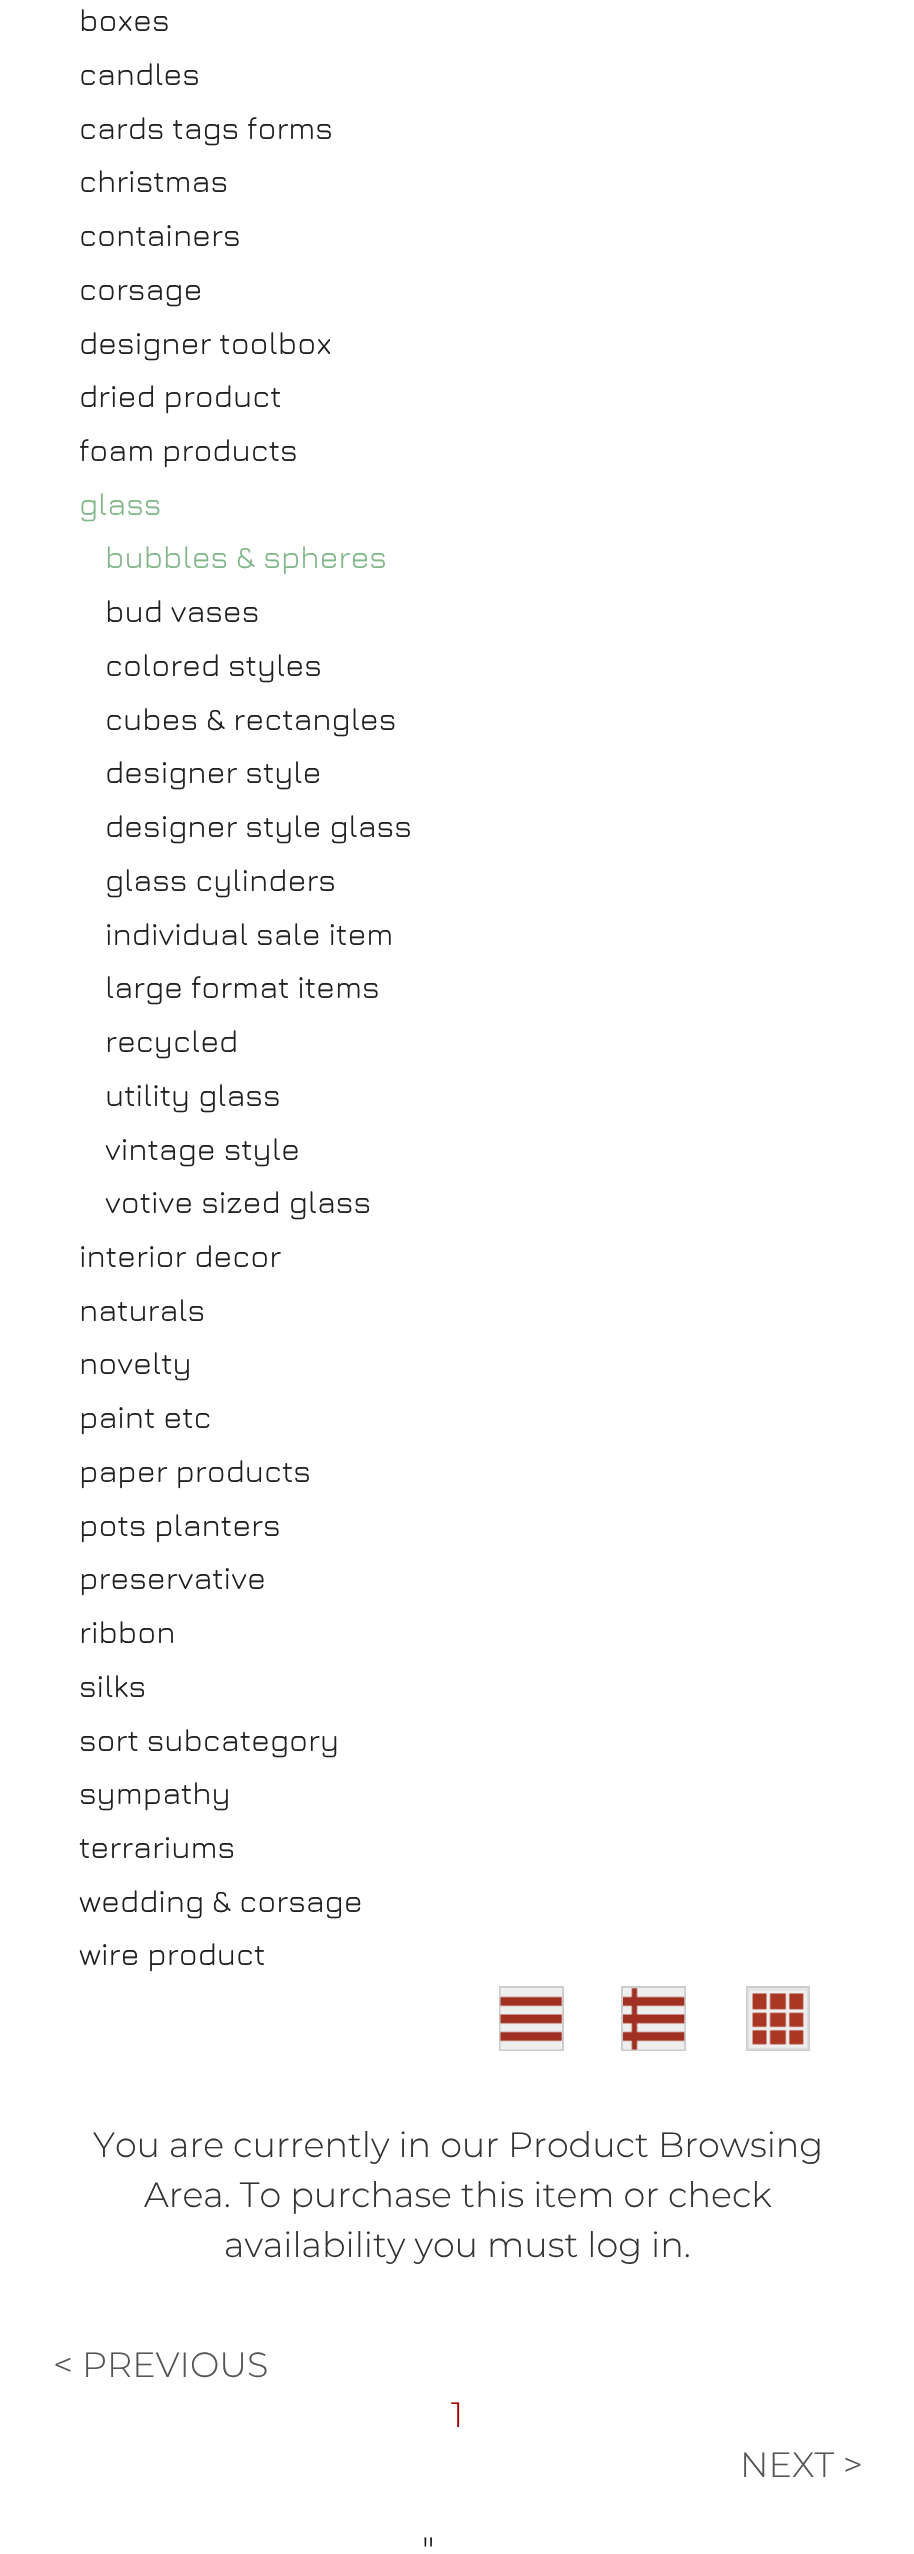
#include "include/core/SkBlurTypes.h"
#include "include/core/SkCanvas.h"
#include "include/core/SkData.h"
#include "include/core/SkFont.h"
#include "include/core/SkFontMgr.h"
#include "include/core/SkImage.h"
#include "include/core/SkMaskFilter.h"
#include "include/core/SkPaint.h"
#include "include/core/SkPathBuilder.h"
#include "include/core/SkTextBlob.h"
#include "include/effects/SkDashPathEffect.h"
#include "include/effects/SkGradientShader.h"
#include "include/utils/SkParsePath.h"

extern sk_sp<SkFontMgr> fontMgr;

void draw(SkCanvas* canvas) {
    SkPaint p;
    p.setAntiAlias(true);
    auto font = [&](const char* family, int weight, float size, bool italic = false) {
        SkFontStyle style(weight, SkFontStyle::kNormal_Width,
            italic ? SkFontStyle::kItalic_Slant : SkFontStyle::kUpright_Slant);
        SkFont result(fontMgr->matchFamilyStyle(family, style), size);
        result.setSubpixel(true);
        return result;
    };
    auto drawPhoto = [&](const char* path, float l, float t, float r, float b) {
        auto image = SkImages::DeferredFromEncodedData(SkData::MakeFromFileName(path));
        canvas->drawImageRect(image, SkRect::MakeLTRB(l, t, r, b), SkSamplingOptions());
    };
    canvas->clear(0xFFFFFFFF);
    auto font1 = font("Jura", 400, 31.5f);
    p.setColor(0xFF202020);
    {
        const struct { const char* s; float x, y; } items[] = {
            {"boxes", 79, 31},
            {"candles", 79, 85},
            {"cards tags forms", 79, 139},
            {"christmas", 79, 192},
            {"containers", 79, 246},
            {"corsage", 79, 300},
            {"designer toolbox", 79, 354},
            {"dried product", 79, 407},
            {"foam products", 79, 461},
        };
        for (auto [s, x, y] : items) {
            canvas->drawString(s, x, y, font1, p);
        }
    }
    p.setColor(0xFF80B788);
    canvas->drawString("glass", 79, 515, font1, p);
    canvas->drawString("bubbles & spheres", 105, 568, font1, p);
    p.setColor(0xFF202020);
    {
        const struct { const char* s; float x, y; } items[] = {
            {"bud vases", 105, 622},
            {"colored styles", 105, 676},
            {"cubes & rectangles", 105, 730},
            {"designer style", 105, 783},
            {"designer style glass", 105, 837},
            {"glass cylinders", 105, 891},
            {"individual sale item", 105, 945},
            {"large format items", 105, 998},
            {"recycled", 105, 1052},
            {"utility glass", 105, 1106},
            {"vintage style", 105, 1160},
            {"votive sized glass", 105, 1213},
            {"interior decor", 79, 1267},
            {"naturals", 79, 1321},
            {"novelty", 79, 1374},
            {"paint etc", 79, 1428},
            {"paper products", 79, 1482},
            {"pots planters", 79, 1536},
            {"preservative", 79, 1589},
            {"ribbon", 79, 1643},
            {"silks", 79, 1697},
            {"sort subcategory", 79, 1751},
            {"sympathy", 79, 1804},
            {"terrariums", 79, 1858},
            {"wedding & corsage", 79, 1912},
            {"wire product", 79, 1965},
        };
        for (auto [s, x, y] : items) {
            canvas->drawString(s, x, y, font1, p);
        }
    }
    p.setStyle(SkPaint::kStroke_Style);
    p.setStrokeWidth(2);
    p.setColor(0xFFCCCCCC);
    canvas->drawRect(SkRect::MakeLTRB(500, 1987, 563, 2050), p);
    canvas->drawRect(SkRect::MakeLTRB(622, 1987, 685, 2050), p);
    canvas->drawRect(SkRect::MakeLTRB(747, 1987, 809, 2050), p);
    drawPhoto("media/1.png", 500, 1988, 562, 2050);
    drawPhoto("media/2.png", 623, 1988, 685, 2050);
    drawPhoto("media/3.png", 747, 1988, 809, 2050);
    auto font2 = font("Montserrat", 300, 35);
    p.setStyle(SkPaint::kFill_Style);
    p.setColor(0xFF333333);
    {
        const struct { const char* s; float x, y; } items[] = {
            {"You are currently in our Product Browsing", 93, 2157},
            {"Area. To purchase this item or check", 144, 2207},
            {"availability you must log in.", 224, 2257},
        };
        for (auto [s, x, y] : items) {
            canvas->drawString(s, x, y, font2, p);
        }
    }
    p.setColor(0xFF555555);
    canvas->drawString("< PREVIOUS", 53, 2377, font2, p);
    p.setColor(0xFF9F0000);
    canvas->drawString("1", 451, 2427, font2, p);
    p.setColor(0xFF555555);
    canvas->drawString("NEXT >", 740, 2477, font2, p);
    p.setColor(0xFF111111);
    canvas->drawString("\"", 422, 2562, font2, p);
}
